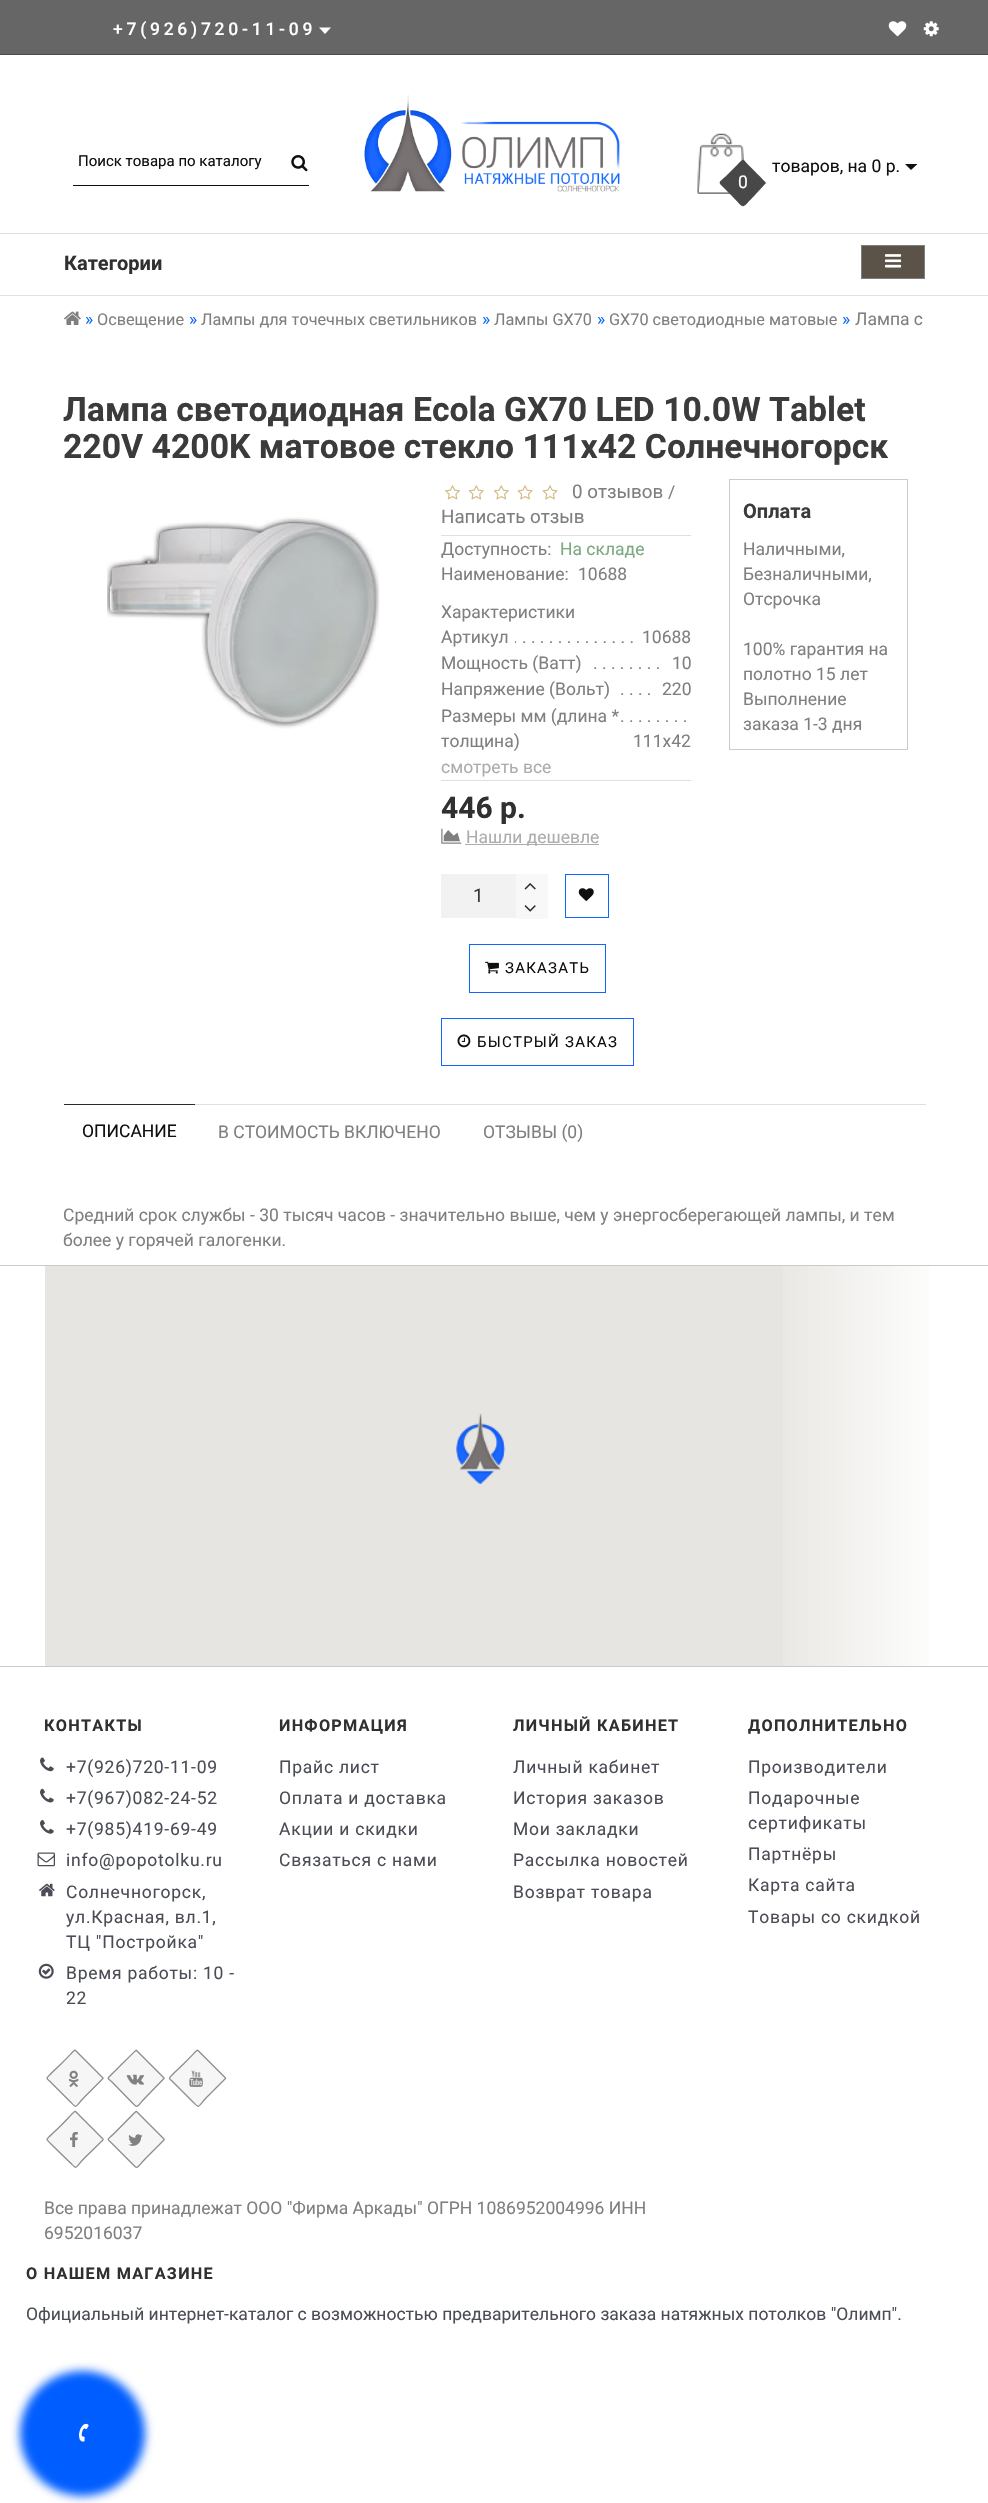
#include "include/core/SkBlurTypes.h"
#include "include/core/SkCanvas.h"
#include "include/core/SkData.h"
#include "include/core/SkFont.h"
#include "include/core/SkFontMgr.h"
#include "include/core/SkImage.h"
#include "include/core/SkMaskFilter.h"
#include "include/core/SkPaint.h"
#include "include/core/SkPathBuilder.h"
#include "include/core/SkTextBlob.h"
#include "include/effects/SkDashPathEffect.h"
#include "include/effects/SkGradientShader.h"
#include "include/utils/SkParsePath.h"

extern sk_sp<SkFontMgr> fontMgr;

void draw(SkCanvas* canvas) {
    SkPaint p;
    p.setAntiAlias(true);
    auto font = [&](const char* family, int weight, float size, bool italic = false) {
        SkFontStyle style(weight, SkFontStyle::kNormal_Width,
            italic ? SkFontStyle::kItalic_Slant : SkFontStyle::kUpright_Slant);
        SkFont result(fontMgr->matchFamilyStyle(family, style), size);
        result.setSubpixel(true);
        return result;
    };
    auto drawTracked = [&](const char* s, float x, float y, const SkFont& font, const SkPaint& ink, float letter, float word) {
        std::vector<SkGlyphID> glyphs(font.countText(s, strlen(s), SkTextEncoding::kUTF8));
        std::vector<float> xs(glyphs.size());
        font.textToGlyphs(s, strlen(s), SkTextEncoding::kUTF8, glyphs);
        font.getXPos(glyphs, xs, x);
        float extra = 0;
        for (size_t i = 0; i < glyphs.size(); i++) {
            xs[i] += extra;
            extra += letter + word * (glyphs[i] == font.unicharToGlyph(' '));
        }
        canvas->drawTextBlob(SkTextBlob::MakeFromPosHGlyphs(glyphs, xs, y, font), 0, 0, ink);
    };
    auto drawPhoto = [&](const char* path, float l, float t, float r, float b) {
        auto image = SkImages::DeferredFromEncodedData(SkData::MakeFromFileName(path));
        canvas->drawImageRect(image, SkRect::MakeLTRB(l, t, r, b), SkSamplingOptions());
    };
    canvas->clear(0xFFFFFFFF);
    p.setColor(0xFF666666);
    canvas->drawRect(SkRect::MakeLTRB(0, 0, 988, 54), p);
    p.setColor(0xFF4B4B4B);
    canvas->drawRect(SkRect::MakeLTRB(0, 54, 988, 55), p);
    auto font1 = font("Roboto", 500, 17.5f);
    p.setColor(0xFFFFFFFF);
    drawTracked("+7(926)720-11-09", 113, 35, font1, p, 3.75f, 0);
    canvas->drawPath(SkPathBuilder().moveTo(319, 27.5f).lineTo(331, 27.5f).lineTo(325, 34).close().detach(), p);
    drawPhoto("media/1.png", 888, 21, 907, 37);
    drawPhoto("media/2.png", 923, 21, 939, 37);
    p.setColor(0xFF0F0F0F);
    canvas->drawRect(SkRect::MakeLTRB(73, 185, 309, 186), p);
    auto font2 = font("Roboto", 400, 15);
    canvas->drawString("Поиск товара по каталогу", 78, 166, font2, p);
    drawPhoto("media/3.png", 291, 155, 308, 172);
    drawPhoto("media/4.png", 364, 95, 620, 192);
    drawPhoto("media/5.png", 697, 133, 744, 194);
    auto font3 = font("Roboto", 400, 17.5f);
    canvas->drawString("товаров, на 0 р.", 772, 172, font3, p);
    p.setColor(0xFF484848);
    canvas->drawPath(SkPathBuilder().moveTo(744, 160).cubicTo(746, 163, 766, 182, 766, 183).lineTo(755, 195).cubicTo(740, 210, 746, 210, 731, 195).lineTo(724, 188).cubicTo(717, 181, 719, 183, 727, 175).lineTo(738, 164).cubicTo(740, 162, 742, 159, 744, 160).close().detach(), p);
    p.setColor(0xFFFFFFFF);
    canvas->drawString("0", 738, 188, font3, p);
    p.setColor(0xFF0F0F0F);
    canvas->drawPath(SkPathBuilder().moveTo(905, 164).lineTo(917.5f, 164).lineTo(911, 170).close().detach(), p);
    p.setColor(0xFFE2E2E2);
    canvas->drawRect(SkRect::MakeLTRB(0, 233, 988, 234), p);
    canvas->drawRect(SkRect::MakeLTRB(0, 295, 988, 296), p);
    auto font4 = font("Roboto", 700, 20);
    p.setColor(0xFF303030);
    canvas->drawString("Категории", 64, 270, font4, p);
    p.setColor(0xFF5B5248);
    canvas->drawRect(SkRect::MakeLTRB(861.5f, 245.5f, 924.5f, 278.5f), p);
    p.setStyle(SkPaint::kStroke_Style);
    p.setStrokeWidth(1);
    p.setColor(0xFF7F7F7F);
    canvas->drawRect(SkRect::MakeLTRB(861.5f, 245.5f, 924.5f, 278.5f), p);
    drawPhoto("media/6.png", 885, 254, 902, 268);
    drawPhoto("media/7.png", 64, 311, 81, 325);
    p.setStyle(SkPaint::kFill_Style);
    p.setColor(0xFF0F67FF);
    canvas->drawString("»", 85, 325, font3, p);
    auto font5 = font("Roboto", 400, 16.25f);
    p.setColor(0xFF7F7F7F);
    canvas->drawString("Освещение", 97, 325, font5, p);
    p.setColor(0xFF0F67FF);
    canvas->drawString("»", 189, 325, font3, p);
    p.setColor(0xFF7F7F7F);
    canvas->drawString("Лампы для точечных светильников", 201, 325, font5, p);
    p.setColor(0xFF0F67FF);
    canvas->drawString("»", 482, 325, font3, p);
    p.setColor(0xFF7F7F7F);
    canvas->drawString("Лампы GX70", 494, 325, font5, p);
    p.setColor(0xFF0F67FF);
    canvas->drawString("»", 597, 325, font3, p);
    p.setColor(0xFF7F7F7F);
    canvas->drawString("GX70 светодиодные матовые", 609, 325, font5, p);
    p.setColor(0xFF0F67FF);
    canvas->drawString("»", 842, 325, font3, p);
    p.setColor(0xFF7F7F7F);
    canvas->drawString("Лампа с", 855, 325, font3, p);
    auto font6 = font("Roboto", 700, 33.75f);
    p.setColor(0xFF3B3B3B);
    canvas->drawString("Лампа светодиодная Ecola GX70 LED 10.0W Tablet", 63, 421, font6, p);
    canvas->drawString("220V 4200K матовое стекло 111х42 Солнечногорск", 63, 458, font6, p);
    drawPhoto("media/8.png", 107, 517, 380, 729);
    p.setColor(0xFFDFDFDF);
    canvas->drawRect(SkRect::MakeLTRB(441, 535, 691, 536), p);
    drawPhoto("media/9.png", 445, 485, 460, 500);
    drawPhoto("media/10.png", 468, 485, 484, 500);
    drawPhoto("media/10.png", 493, 485, 509, 500);
    drawPhoto("media/11.png", 517, 485, 533, 500);
    drawPhoto("media/11.png", 542, 485, 558, 500);
    auto font7 = font("Roboto", 400, 18.75f);
    p.setColor(0xFF7F7F7F);
    canvas->drawString("0 отзывов", 572, 498, font7, p);
    canvas->drawString("/", 668, 498, font3, p);
    canvas->drawString("Написать отзыв", 441, 523, font7, p);
    canvas->drawString("Доступность:", 441, 555, font3, p);
    p.setColor(0xFF7CA980);
    canvas->drawString("На складе", 560, 555, font3, p);
    p.setColor(0xFF7F7F7F);
    {
        const struct { const char* s; float x, y; } items[] = {
            {"Наименование:", 441, 580},
            {"10688", 578, 580},
            {"Характеристики", 441, 618},
            {"Артикул", 441, 643},
            {". . . . . . . . . . . . . .", 513, 643},
        };
        for (auto [s, x, y] : items) {
            canvas->drawString(s, x, y, font3, p);
        }
    }
    p.setColor(0xFFFFFFFF);
    canvas->drawRect(SkRect::MakeLTRB(514, 641, 515, 643), p);
    p.setColor(0xFF7F7F7F);
    {
        const struct { const char* s; float x, y; } items[] = {
            {"10688", 642, 643},
            {"Мощность (Ватт)", 441, 669},
            {". . . . . . . .", 593, 669},
            {"10", 672, 669},
            {"Напряжение (Вольт)", 441, 695},
            {". . . .", 620, 695},
            {"220", 662, 695},
            {"Размеры мм (длина *", 441, 722},
            {". . . . . . . .", 620, 722},
            {"толщина)", 441, 747},
            {"111х42", 633, 747},
        };
        for (auto [s, x, y] : items) {
            canvas->drawString(s, x, y, font3, p);
        }
    }
    p.setColor(0xFFACACAC);
    canvas->drawString("смотреть все", 441, 773, font3, p);
    p.setColor(0xFFDFDFDF);
    canvas->drawRect(SkRect::MakeLTRB(441, 780, 691, 781), p);
    auto font8 = font("Roboto", 700, 30);
    p.setColor(0xFF303030);
    canvas->drawString("446 р.", 441, 818, font8, p);
    drawPhoto("media/12.png", 441, 828, 462, 844);
    p.setColor(0xFFACACAC);
    canvas->drawRect(SkRect::MakeLTRB(465, 844, 599, 845), p);
    canvas->drawString("Нашли дешевле", 466, 843, font3, p);
    p.setColor(0xFFF2F2F2);
    canvas->drawRect(SkRect::MakeLTRB(441, 874, 516, 918), p);
    p.setColor(0xFF3B3B3B);
    canvas->drawString("1", 473, 902, font7, p);
    p.setColor(0xFFF8F8F8);
    canvas->drawRect(SkRect::MakeLTRB(516, 874, 548, 919), p);
    drawPhoto("media/13.png", 524, 883, 536, 890);
    drawPhoto("media/14.png", 524, 905, 536, 912);
    p.setStyle(SkPaint::kStroke_Style);
    p.setColor(0xFF0F67FF);
    canvas->drawRect(SkRect::MakeLTRB(565.5f, 874.5f, 608.5f, 917.5f), p);
    drawPhoto("media/15.png", 578, 888, 594, 901);
    canvas->drawRect(SkRect::MakeLTRB(469.5f, 944.5f, 605.5f, 992.5f), p);
    drawPhoto("media/16.png", 485, 961, 499, 974);
    p.setStyle(SkPaint::kFill_Style);
    p.setColor(0xFF0F0F0F);
    drawTracked("ЗАКАЗАТЬ", 505, 973, font2, p, 1.25f, 0);
    p.setStyle(SkPaint::kStroke_Style);
    p.setColor(0xFF0F67FF);
    canvas->drawRect(SkRect::MakeLTRB(441.5f, 1018.5f, 633.5f, 1065.5f), p);
    drawPhoto("media/17.png", 457, 1034, 471, 1048);
    p.setStyle(SkPaint::kFill_Style);
    p.setColor(0xFF0F0F0F);
    drawTracked("БЫСТРЫЙ ЗАКАЗ", 477, 1047, font2, p, 1.25f, 0);
    p.setStyle(SkPaint::kStroke_Style);
    p.setColor(0xFFCBCBCB);
    canvas->drawRect(SkRect::MakeLTRB(729.5f, 479.5f, 907.5f, 749.5f), p);
    p.setStyle(SkPaint::kFill_Style);
    p.setColor(0xFF3B3B3B);
    canvas->drawString("Оплата", 743, 518, font4, p);
    p.setColor(0xFF7F7F7F);
    {
        const struct { const char* s; float x, y; } items[] = {
            {"Наличными,", 743, 555},
            {"Безналичными,", 743, 580},
            {"Отсрочка", 743, 605},
            {"100% гарантия на", 743, 655},
            {"полотно 15 лет", 743, 680},
            {"Выполнение", 743, 705},
            {"заказа 1-3 дня", 743, 730},
        };
        for (auto [s, x, y] : items) {
            canvas->drawString(s, x, y, font3, p);
        }
    }
    p.setColor(0xFFDFDFDF);
    canvas->drawRect(SkRect::MakeLTRB(195, 1104, 926, 1105), p);
    p.setColor(0xFF2B2B2B);
    canvas->drawRect(SkRect::MakeLTRB(64, 1104, 195, 1105), p);
    p.setColor(0xFF0F0F0F);
    canvas->drawString("ОПИСАНИЕ", 82, 1137, font3, p);
    p.setColor(0xFF7F7F7F);
    {
        const struct { const char* s; float x, y; } items[] = {
            {"В СТОИМОСТЬ ВКЛЮЧЕНО", 218, 1138},
            {"ОТЗЫВЫ (0)", 483, 1138},
            {"Средний срок службы - 30 тысяч часов - значительно выше, чем у энергосберегающей лампы, и тем", 63, 1221},
            {"более у горячей галогенки.", 63, 1246},
        };
        for (auto [s, x, y] : items) {
            canvas->drawString(s, x, y, font3, p);
        }
    }
    p.setColor(0xFF005DFF);
    p.setMaskFilter(SkMaskFilter::MakeBlur(kNormal_SkBlurStyle, 5));
    canvas->drawRoundRect(SkRect::MakeLTRB(20, 2371, 145, 2496), 62.5f, 62.5f, p);
    p.setMaskFilter(nullptr);
    drawPhoto("media/18.png", 79, 2423, 89, 2442);
    p.setColor(0xFFCBCBCB);
    canvas->drawRect(SkRect::MakeLTRB(0, 1265, 988, 1266), p);
    p.setColor(0xFFE7E5E1);
    canvas->drawRect(SkRect::MakeLTRB(45, 1266, 783, 1666), p);
    drawPhoto("media/19.png", 456, 1413, 506, 1485);
    {
        const SkColor colors[] = {0xFFE9E8E4, 0xFFFFFFFF};
        const float stops[] = {0, 1};
        const SkPoint ends[] = {{783, 1466}, {945, 1466}};
        p.setShader(SkGradientShader::MakeLinear(ends, colors, stops, 2, SkTileMode::kClamp));
        p.setAlpha(255);
    }
    canvas->drawRect(SkRect::MakeLTRB(783, 1266, 930, 1666), p);
    p.setShader(nullptr);
    p.setColor(0xFFCBCBCB);
    canvas->drawRect(SkRect::MakeLTRB(0, 1666, 988, 1667), p);
    auto font9 = font("Roboto", 700, 16.25f);
    p.setColor(0xFF303030);
    drawTracked("КОНТАКТЫ", 44, 1731, font9, p, 1.25f, 0);
    drawPhoto("media/20.png", 40, 1757, 54, 1772);
    p.setColor(0xFF4A4D55);
    drawTracked("+7(926)720-11-09", 66, 1773, font3, p, 0.75f, 0);
    drawPhoto("media/21.png", 40, 1788, 54, 1803);
    drawTracked("+7(967)082-24-52", 66, 1804, font3, p, 0.75f, 0);
    drawPhoto("media/22.png", 40, 1820, 54, 1834);
    drawTracked("+7(985)419-69-49", 66, 1835, font3, p, 0.75f, 0);
    drawPhoto("media/23.png", 37, 1852, 55, 1867);
    drawTracked("info@popotolku.ru", 66, 1866, font3, p, 0.75f, 0);
    drawPhoto("media/24.png", 39, 1883, 55, 1897);
    {
        const struct { const char* s; float x, y; } items[] = {
            {"Солнечногорск,", 66, 1898},
            {"ул.Красная, вл.1,", 66, 1923},
            {"ТЦ \"Постройка\"", 66, 1948},
        };
        for (auto [s, x, y] : items) {
            drawTracked(s, x, y, font3, p, 0.75f, 0);
        }
    }
    drawPhoto("media/25.png", 38, 1963, 54, 1979);
    drawTracked("Время работы: 10 -", 66, 1979, font3, p, 0.75f, 0);
    drawTracked("22", 66, 2004, font3, p, 0.75f, 0);
    p.setColor(0xFF303030);
    drawTracked("ИНФОРМАЦИЯ", 279, 1731, font9, p, 1.25f, 0);
    p.setColor(0xFF4A4D55);
    {
        const struct { const char* s; float x, y; } items[] = {
            {"Прайс лист", 279, 1773},
            {"Оплата и доставка", 279, 1804},
            {"Акции и скидки", 279, 1835},
            {"Связаться с нами", 279, 1866},
        };
        for (auto [s, x, y] : items) {
            drawTracked(s, x, y, font3, p, 0.75f, 0);
        }
    }
    p.setColor(0xFF303030);
    drawTracked("ЛИЧНЫЙ КАБИНЕТ", 513, 1731, font9, p, 1.25f, 0);
    p.setColor(0xFF4A4D55);
    {
        const struct { const char* s; float x, y; } items[] = {
            {"Личный кабинет", 513, 1773},
            {"История заказов", 513, 1804},
            {"Мои закладки", 513, 1835},
            {"Рассылка новостей", 513, 1866},
            {"Возврат товара", 513, 1898},
        };
        for (auto [s, x, y] : items) {
            drawTracked(s, x, y, font3, p, 0.75f, 0);
        }
    }
    p.setColor(0xFF303030);
    drawTracked("ДОПОЛНИТЕЛЬНО", 748, 1731, font9, p, 1.25f, 0);
    p.setColor(0xFF4A4D55);
    {
        const struct { const char* s; float x, y; } items[] = {
            {"Производители", 748, 1773},
            {"Подарочные", 748, 1804},
            {"сертификаты", 748, 1829},
            {"Партнёры", 748, 1860},
            {"Карта сайта", 748, 1891},
            {"Товары со скидкой", 748, 1923},
        };
        for (auto [s, x, y] : items) {
            drawTracked(s, x, y, font3, p, 0.75f, 0);
        }
    }
    p.setColor(0xFFF6F6F6);
    canvas->drawPath(SkPathBuilder().moveTo(76, 2050).lineTo(103, 2077).cubicTo(104, 2078, 104, 2079, 103, 2079).lineTo(76, 2106).cubicTo(75, 2107, 75, 2107, 74, 2106).lineTo(47, 2079).cubicTo(46, 2079, 46, 2078, 47, 2077).lineTo(74, 2050).cubicTo(75, 2049, 75, 2049, 76, 2050).close().detach(), p);
    p.setStyle(SkPaint::kStroke_Style);
    p.setStrokeWidth(1.3f);
    p.setColor(0xFF8D8D8E);
    canvas->drawPath(SkPathBuilder().moveTo(75.5f, 2050.5f).lineTo(103, 2078).lineTo(103, 2078.5f).lineTo(84.5f, 2097).cubicTo(74, 2107.5f, 78, 2109.5f, 70, 2101.5f).lineTo(51.5f, 2083).cubicTo(45.5f, 2077, 45.5f, 2079.5f, 51.5f, 2073).lineTo(61, 2064).cubicTo(74.5f, 2050.5f, 74.5f, 2049.5f, 75.5f, 2050.5f).close().detach(), p);
    drawPhoto("media/26.png", 68, 2070, 79, 2087);
    p.setStyle(SkPaint::kFill_Style);
    p.setColor(0xFFF6F6F6);
    canvas->drawPath(SkPathBuilder().moveTo(137, 2050).lineTo(165, 2077).cubicTo(165, 2078, 165, 2079, 165, 2079).lineTo(137, 2106).cubicTo(137, 2107, 136, 2107, 135, 2106).lineTo(108, 2079).cubicTo(107, 2079, 107, 2078, 108, 2077).lineTo(135, 2050).cubicTo(136, 2049, 137, 2049, 137, 2050).close().detach(), p);
    p.setStyle(SkPaint::kStroke_Style);
    p.setColor(0xFF8D8D8E);
    canvas->drawPath(SkPathBuilder().moveTo(136.5f, 2050.5f).lineTo(164, 2078).lineTo(164, 2078.5f).lineTo(146, 2097).cubicTo(135.5f, 2107.5f, 139, 2109.5f, 131, 2101.5f).lineTo(113, 2083).cubicTo(106.5f, 2077, 106.5f, 2079.5f, 113, 2073).lineTo(122, 2064).cubicTo(136, 2050.5f, 136, 2049.5f, 136.5f, 2050.5f).close().detach(), p);
    drawPhoto("media/27.png", 126, 2074, 144, 2085);
    p.setStyle(SkPaint::kFill_Style);
    p.setColor(0xFFF6F6F6);
    canvas->drawPath(SkPathBuilder().moveTo(198, 2050).lineTo(226, 2077).cubicTo(226, 2078, 226, 2079, 226, 2079).lineTo(198, 2106).cubicTo(198, 2107, 197, 2107, 197, 2106).lineTo(169, 2079).cubicTo(169, 2079, 169, 2078, 169, 2077).lineTo(197, 2050).cubicTo(197, 2049, 198, 2049, 198, 2050).close().detach(), p);
    p.setStyle(SkPaint::kStroke_Style);
    p.setColor(0xFF8D8D8E);
    canvas->drawPath(SkPathBuilder().moveTo(198, 2050.5f).lineTo(225.5f, 2078).lineTo(225.5f, 2078.5f).lineTo(207, 2097).cubicTo(196.5f, 2107.5f, 200.5f, 2109.5f, 192.5f, 2101.5f).lineTo(174, 2083).cubicTo(168, 2077, 168, 2079.5f, 174, 2073).lineTo(183.5f, 2064).cubicTo(197, 2050.5f, 197, 2049.5f, 198, 2050.5f).close().detach(), p);
    drawPhoto("media/28.png", 189, 2070, 203, 2087);
    p.setStyle(SkPaint::kFill_Style);
    p.setColor(0xFFF6F6F6);
    canvas->drawPath(SkPathBuilder().moveTo(76, 2111).lineTo(103, 2139).cubicTo(104, 2139, 104, 2140, 103, 2140).lineTo(76, 2168).cubicTo(75, 2168, 75, 2168, 74, 2168).lineTo(47, 2140).cubicTo(46, 2140, 46, 2139, 47, 2139).lineTo(74, 2111).cubicTo(75, 2111, 75, 2111, 76, 2111).close().detach(), p);
    p.setStyle(SkPaint::kStroke_Style);
    p.setColor(0xFF8D8D8E);
    canvas->drawPath(SkPathBuilder().moveTo(75.5f, 2111.5f).lineTo(103, 2139).lineTo(103, 2140).lineTo(84.5f, 2158).cubicTo(74, 2168.5f, 78, 2170.5f, 70, 2162.5f).lineTo(51.5f, 2144.5f).cubicTo(45.5f, 2138, 45.5f, 2140.5f, 51.5f, 2134.5f).lineTo(61, 2125.5f).cubicTo(74.5f, 2111.5f, 74.5f, 2111, 75.5f, 2111.5f).close().detach(), p);
    drawPhoto("media/29.png", 70, 2132, 78, 2148);
    p.setStyle(SkPaint::kFill_Style);
    p.setColor(0xFFF6F6F6);
    canvas->drawPath(SkPathBuilder().moveTo(137, 2111).lineTo(165, 2139).cubicTo(165, 2139, 165, 2140, 165, 2140).lineTo(137, 2168).cubicTo(137, 2168, 136, 2168, 135, 2168).lineTo(108, 2140).cubicTo(107, 2140, 107, 2139, 108, 2139).lineTo(135, 2111).cubicTo(136, 2111, 137, 2111, 137, 2111).close().detach(), p);
    p.setStyle(SkPaint::kStroke_Style);
    p.setColor(0xFF8D8D8E);
    canvas->drawPath(SkPathBuilder().moveTo(136.5f, 2111.5f).lineTo(164, 2139).lineTo(164, 2140).lineTo(146, 2158).cubicTo(135.5f, 2168.5f, 139, 2170.5f, 131, 2162.5f).lineTo(113, 2144.5f).cubicTo(106.5f, 2138, 106.5f, 2140.5f, 113, 2134.5f).lineTo(122, 2125.5f).cubicTo(136, 2111.5f, 136, 2111, 136.5f, 2111.5f).close().detach(), p);
    drawPhoto("media/30.png", 128, 2134, 143, 2146);
    p.setStyle(SkPaint::kFill_Style);
    p.setColor(0xFF7F7F7F);
    canvas->drawString("Все права принадлежат ООО \"Фирма Аркады\" ОГРН 1086952004996 ИНН", 44, 2214, font3, p);
    canvas->drawString("6952016037", 44, 2239, font3, p);
    p.setColor(0xFF303030);
    drawTracked("О НАШЕМ МАГАЗИНЕ", 26, 2279, font9, p, 1.25f, 0);
    p.setColor(0xFF4A4D55);
    canvas->drawString("Официальный интернет-каталог с возможностью предварительного заказа натяжных потолков \"Олимп\".", 26, 2320, font3, p);
}
